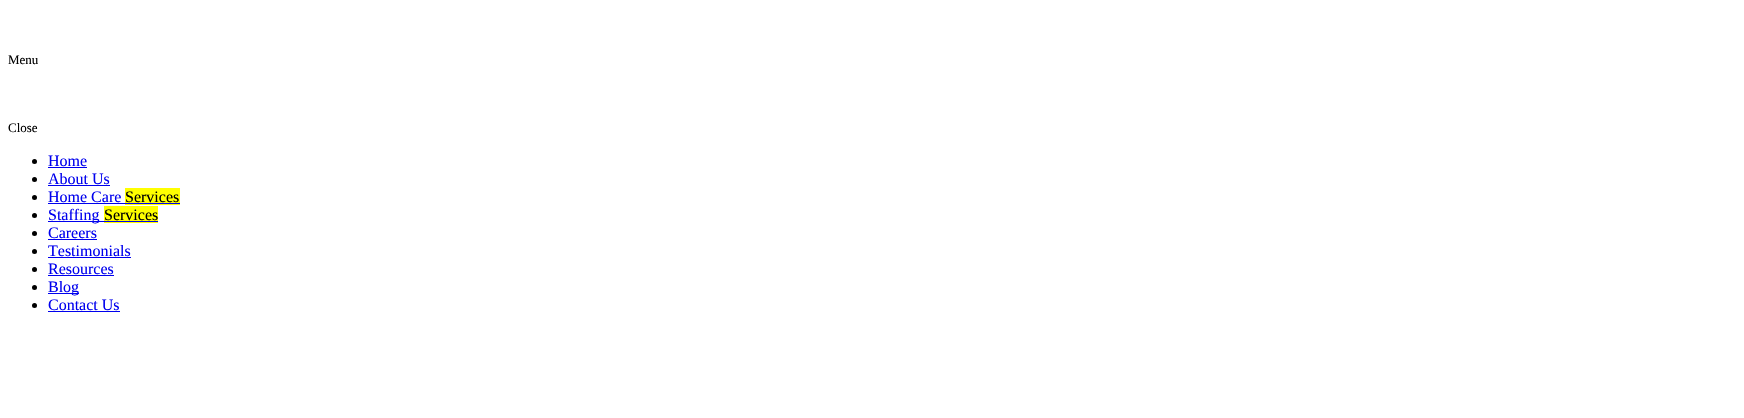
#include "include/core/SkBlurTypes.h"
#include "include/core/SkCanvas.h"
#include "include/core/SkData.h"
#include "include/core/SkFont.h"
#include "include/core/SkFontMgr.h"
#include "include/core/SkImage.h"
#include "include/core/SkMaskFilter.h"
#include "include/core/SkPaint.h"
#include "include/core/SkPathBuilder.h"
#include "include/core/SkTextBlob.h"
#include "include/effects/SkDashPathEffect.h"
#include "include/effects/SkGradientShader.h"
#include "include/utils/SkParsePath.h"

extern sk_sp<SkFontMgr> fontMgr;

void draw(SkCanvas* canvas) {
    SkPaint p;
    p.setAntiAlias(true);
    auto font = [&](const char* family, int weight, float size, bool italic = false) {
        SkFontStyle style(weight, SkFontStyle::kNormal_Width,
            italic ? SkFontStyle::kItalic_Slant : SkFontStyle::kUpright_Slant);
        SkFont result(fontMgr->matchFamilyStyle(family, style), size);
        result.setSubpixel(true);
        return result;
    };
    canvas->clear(0xFFFFFFFF);
    auto font1 = font("Liberation Serif", 400, 13);
    p.setColor(0xFF000000);
    canvas->drawString("Menu", 8, 64, font1, p);
    canvas->drawString("Close", 8, 132, font1, p);
    canvas->drawCircle(34.5f, 161.5f, 2.5f, p);
    auto font2 = font("Liberation Serif", 400, 16);
    p.setColor(0xFF0000EE);
    canvas->drawString("Home", 48, 166, font2, p);
    canvas->drawRect(SkRect::MakeLTRB(48, 167, 87, 168), p);
    p.setColor(0xFF000000);
    canvas->drawCircle(34.5f, 179.5f, 2.5f, p);
    p.setColor(0xFF0000EE);
    canvas->drawString("About Us", 48, 184, font2, p);
    canvas->drawRect(SkRect::MakeLTRB(48, 185, 110, 186), p);
    p.setColor(0xFF000000);
    canvas->drawCircle(34.5f, 197.5f, 2.5f, p);
    p.setColor(0xFF0000EE);
    canvas->drawString("Home Care", 48, 202, font2, p);
    canvas->drawRect(SkRect::MakeLTRB(48, 203, 125, 204), p);
    p.setColor(0xFFFFFF00);
    canvas->drawRect(SkRect::MakeLTRB(125, 188, 180, 205), p);
    p.setColor(0xFF000000);
    canvas->drawString("Services", 125, 202, font2, p);
    p.setColor(0xFF0000EE);
    canvas->drawRect(SkRect::MakeLTRB(125, 203, 180, 204), p);
    p.setColor(0xFF000000);
    canvas->drawCircle(34.5f, 215.5f, 2.5f, p);
    p.setColor(0xFF0000EE);
    canvas->drawRect(SkRect::MakeLTRB(48, 221, 104, 222), p);
    canvas->drawString("Staffing", 48, 220, font2, p);
    p.setColor(0xFFFFFF00);
    canvas->drawRect(SkRect::MakeLTRB(104, 206, 158, 223), p);
    p.setColor(0xFF000000);
    canvas->drawString("Services", 104, 220, font2, p);
    p.setColor(0xFF0000EE);
    canvas->drawRect(SkRect::MakeLTRB(104, 221, 158, 222), p);
    p.setColor(0xFF000000);
    canvas->drawCircle(34.5f, 233.5f, 2.5f, p);
    p.setColor(0xFF0000EE);
    canvas->drawString("Careers", 48, 238, font2, p);
    canvas->drawRect(SkRect::MakeLTRB(48, 239, 97, 240), p);
    p.setColor(0xFF000000);
    canvas->drawCircle(34.5f, 251.5f, 2.5f, p);
    p.setColor(0xFF0000EE);
    canvas->drawString("Testimonials", 48, 256, font2, p);
    canvas->drawRect(SkRect::MakeLTRB(48, 257, 131, 258), p);
    p.setColor(0xFF000000);
    canvas->drawCircle(34.5f, 269.5f, 2.5f, p);
    p.setColor(0xFF0000EE);
    canvas->drawString("Resources", 48, 274, font2, p);
    canvas->drawRect(SkRect::MakeLTRB(48, 275, 114, 276), p);
    p.setColor(0xFF000000);
    canvas->drawCircle(34.5f, 287.5f, 2.5f, p);
    p.setColor(0xFF0000EE);
    canvas->drawRect(SkRect::MakeLTRB(48, 293, 79, 294), p);
    canvas->drawString("Blog", 48, 292, font2, p);
    p.setColor(0xFF000000);
    canvas->drawCircle(34.5f, 305.5f, 2.5f, p);
    p.setColor(0xFF0000EE);
    canvas->drawString("Contact Us", 48, 310, font2, p);
    canvas->drawRect(SkRect::MakeLTRB(48, 311, 120, 312), p);
}
